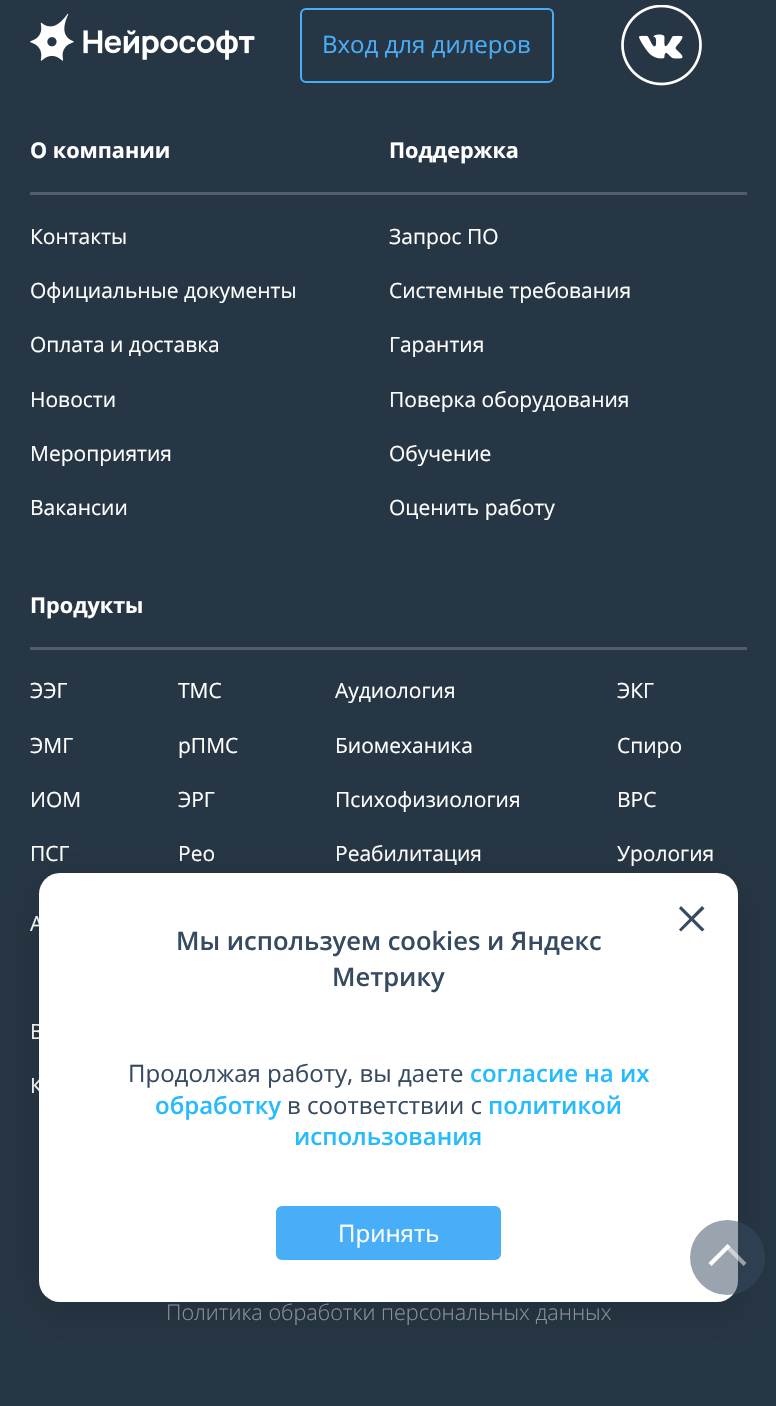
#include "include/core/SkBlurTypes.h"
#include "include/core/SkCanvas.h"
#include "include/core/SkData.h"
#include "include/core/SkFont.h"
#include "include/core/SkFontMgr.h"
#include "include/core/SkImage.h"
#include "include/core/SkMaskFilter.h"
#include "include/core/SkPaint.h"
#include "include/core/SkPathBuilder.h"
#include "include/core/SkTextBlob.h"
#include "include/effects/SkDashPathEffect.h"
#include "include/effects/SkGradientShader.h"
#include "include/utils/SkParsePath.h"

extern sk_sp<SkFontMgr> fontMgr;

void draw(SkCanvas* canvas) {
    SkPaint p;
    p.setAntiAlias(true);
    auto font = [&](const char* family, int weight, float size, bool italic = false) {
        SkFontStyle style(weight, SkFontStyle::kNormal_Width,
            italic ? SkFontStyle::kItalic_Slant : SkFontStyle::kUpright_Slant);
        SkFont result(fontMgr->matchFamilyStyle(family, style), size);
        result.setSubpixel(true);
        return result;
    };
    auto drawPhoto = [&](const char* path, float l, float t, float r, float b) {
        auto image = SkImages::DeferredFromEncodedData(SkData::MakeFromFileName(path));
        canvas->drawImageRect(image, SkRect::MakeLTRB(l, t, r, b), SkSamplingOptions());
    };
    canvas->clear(0xFF273644);
    drawPhoto("media/1.png", 30, 13, 255, 61);
    p.setStyle(SkPaint::kStroke_Style);
    p.setStrokeWidth(2);
    p.setColor(0xFF49AEF8);
    canvas->drawRoundRect(SkRect::MakeLTRB(301, 9, 553, 82), 5, 5, p);
    auto font1 = font("Open Sans", 400, 24);
    p.setStyle(SkPaint::kFill_Style);
    canvas->drawString("Вход для дилеров", 322, 53, font1, p);
    drawPhoto("media/2.png", 621, 5, 702, 86);
    p.setColor(0xFF525E69);
    canvas->drawRect(SkRect::MakeLTRB(30, 192, 747, 195), p);
    auto font2 = font("Open Sans", 700, 21.6f);
    p.setColor(0xFFFFFFFF);
    canvas->drawString("О компании", 30, 158, font2, p);
    auto font3 = font("Open Sans", 400, 21);
    {
        const struct { const char* s; float x, y; } items[] = {
            {"Контакты", 30, 244},
            {"Официальные документы", 30, 298},
            {"Оплата и доставка", 30, 352},
            {"Новости", 30, 407},
            {"Мероприятия", 30, 461},
            {"Вакансии", 30, 515},
        };
        for (auto [s, x, y] : items) {
            canvas->drawString(s, x, y, font3, p);
        }
    }
    canvas->drawString("Поддержка", 389, 158, font2, p);
    {
        const struct { const char* s; float x, y; } items[] = {
            {"Запрос ПО", 389, 244},
            {"Системные требования", 389, 298},
            {"Гарантия", 389, 352},
            {"Поверка оборудования", 389, 407},
            {"Обучение", 389, 461},
            {"Оценить работу", 389, 515},
        };
        for (auto [s, x, y] : items) {
            canvas->drawString(s, x, y, font3, p);
        }
    }
    p.setColor(0xFF525E69);
    canvas->drawRect(SkRect::MakeLTRB(30, 647, 747, 650), p);
    p.setColor(0xFFFFFFFF);
    canvas->drawString("Продукты", 30, 613, font2, p);
    {
        const struct { const char* s; float x, y; } items[] = {
            {"ЭЭГ", 30, 698},
            {"ЭМГ", 30, 753},
            {"ИОМ", 30, 807},
            {"ПСГ", 30, 861},
            {"ТМС", 178, 698},
            {"рПМС", 178, 753},
            {"ЭРГ", 178, 807},
            {"Рео", 178, 861},
            {"Аудиология", 335, 698},
            {"Биомеханика", 335, 753},
            {"Психофизиология", 335, 807},
            {"Реабилитация", 335, 861},
            {"ЭКГ", 617, 698},
            {"Спиро", 617, 753},
            {"ВРС", 617, 807},
            {"Урология", 617, 861},
            {"А", 30, 931},
            {"В", 30, 1039},
            {"К", 30, 1093},
        };
        for (auto [s, x, y] : items) {
            canvas->drawString(s, x, y, font3, p);
        }
    }
    auto font4 = font("Open Sans", 300, 21.6f);
    p.setColor(0xFF939BA2);
    canvas->drawString("Политика обработки персональных данных", 166, 1320, font4, p);
    p.setColor(0x24000000);
    p.setMaskFilter(SkMaskFilter::MakeBlur(kNormal_SkBlurStyle, 21));
    canvas->drawRoundRect(SkRect::MakeLTRB(39, 882, 738, 1311), 21, 21, p);
    p.setMaskFilter(nullptr);
    p.setColor(0xFFFFFFFF);
    canvas->drawRoundRect(SkRect::MakeLTRB(39, 873, 738, 1302), 21, 21, p);
    p.setColor(0xFF364A60);
    canvas->drawPath(SkPathBuilder().moveTo(702, 906).lineTo(704.5f, 908.5f).lineTo(681, 931.5f).lineTo(679, 929.5f).close().detach(), p);
    canvas->drawPath(SkPathBuilder().moveTo(679, 908.5f).lineTo(681, 906).lineTo(704.5f, 929.5f).lineTo(702, 931.5f).close().detach(), p);
    auto font5 = font("Open Sans", 600, 25.5f);
    canvas->drawString("Мы используем cookies и Яндекс", 176, 950, font5, p);
    canvas->drawString("Метрику", 332, 986, font5, p);
    canvas->drawString("Продолжая работу, вы даете", 128, 1082, font1, p);
    auto font6 = font("Open Sans", 600, 24);
    p.setColor(0xFF26BBFC);
    canvas->drawString("согласие на их", 470, 1082, font6, p);
    canvas->drawString("обработку", 155, 1114, font6, p);
    p.setColor(0xFF364A60);
    canvas->drawString("в соответствии с", 287, 1114, font1, p);
    p.setColor(0xFF26BBFC);
    canvas->drawString("политикой", 488, 1114, font6, p);
    canvas->drawString("использования", 294, 1145, font6, p);
    p.setColor(0xFF49AEF8);
    canvas->drawRoundRect(SkRect::MakeLTRB(276, 1206, 501, 1260), 6, 6, p);
    p.setColor(0xFFFFFFFF);
    canvas->drawString("Принять", 338, 1242, font1, p);
    p.setColor(0x80364A60);
    canvas->drawCircle(727.5f, 1257.5f, 37.5f, p);
    p.setColor(0x80FFFFFF);
    canvas->drawPath(SkPathBuilder().moveTo(727.5f, 1244).lineTo(746.5f, 1263).lineTo(743.5f, 1266).lineTo(724.5f, 1247).close().detach(), p);
    p.setColor(0xFFFFFFFF);
    canvas->drawPath(SkPathBuilder().moveTo(727.5f, 1244).lineTo(730.5f, 1247).lineTo(711.5f, 1266).lineTo(708.5f, 1263).close().detach(), p);
}
